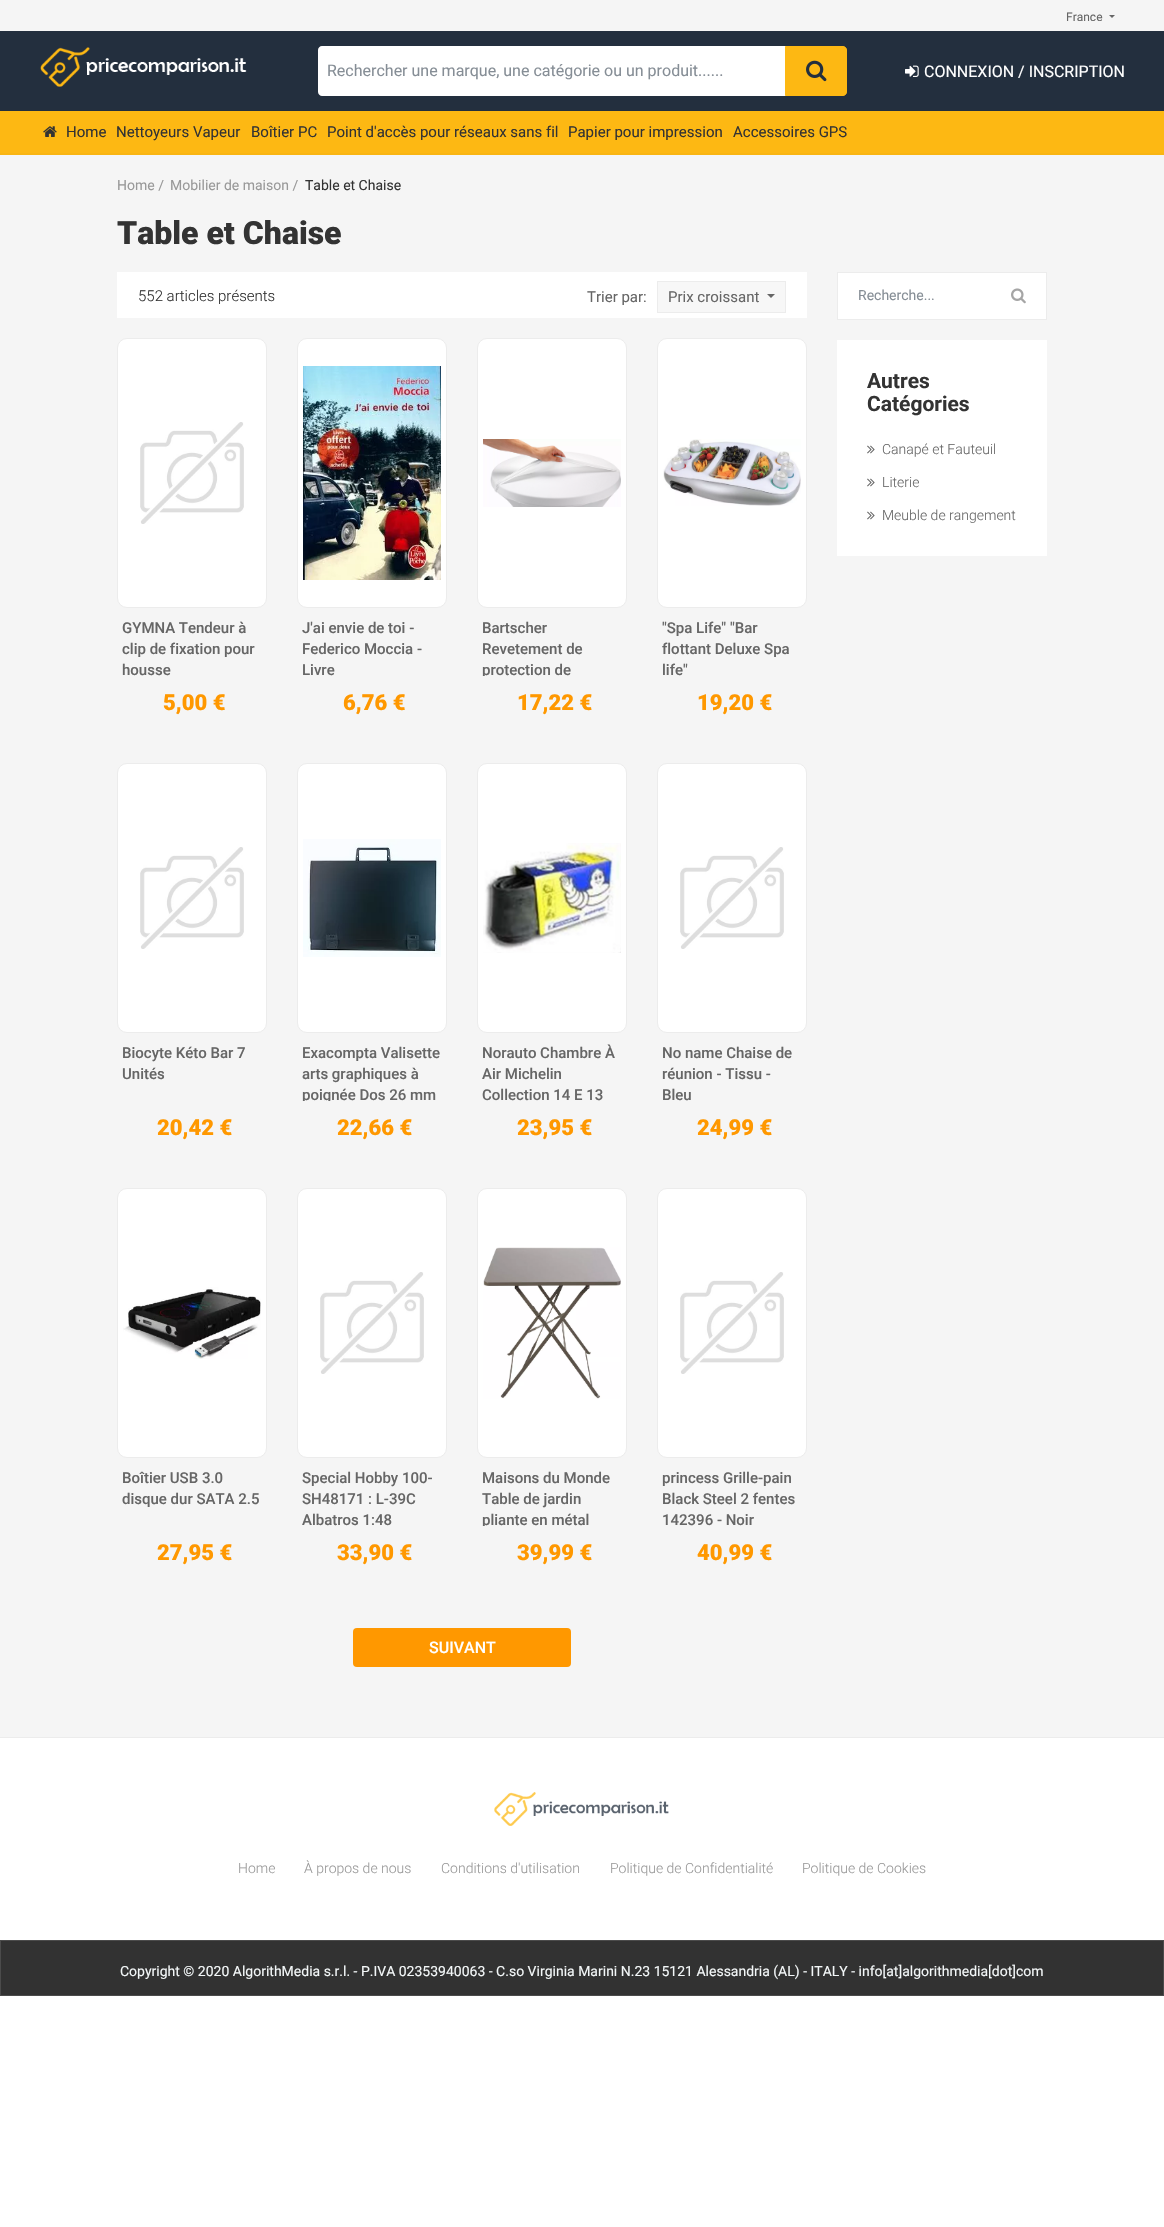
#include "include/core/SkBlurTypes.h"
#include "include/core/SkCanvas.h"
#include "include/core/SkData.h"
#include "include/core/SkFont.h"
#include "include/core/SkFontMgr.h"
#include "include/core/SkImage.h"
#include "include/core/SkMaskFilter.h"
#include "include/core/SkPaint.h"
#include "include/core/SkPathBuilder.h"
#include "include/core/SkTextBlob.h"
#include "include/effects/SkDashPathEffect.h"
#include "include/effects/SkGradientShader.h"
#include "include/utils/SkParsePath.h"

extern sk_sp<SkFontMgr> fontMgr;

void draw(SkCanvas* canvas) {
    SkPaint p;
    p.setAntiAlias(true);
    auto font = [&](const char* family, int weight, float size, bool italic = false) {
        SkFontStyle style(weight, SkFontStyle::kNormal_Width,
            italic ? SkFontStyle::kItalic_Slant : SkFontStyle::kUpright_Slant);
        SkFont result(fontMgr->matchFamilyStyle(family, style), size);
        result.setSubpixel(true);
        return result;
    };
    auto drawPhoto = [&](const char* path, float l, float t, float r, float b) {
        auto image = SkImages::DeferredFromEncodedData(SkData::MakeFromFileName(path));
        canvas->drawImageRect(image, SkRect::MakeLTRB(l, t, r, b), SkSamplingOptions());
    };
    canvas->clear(0xFFFFFFFF);
    p.setColor(0xFFF5F5F5);
    canvas->drawRect(SkRect::MakeLTRB(0, 0, 1164, 31), p);
    auto font1 = font("Roboto", 400, 12);
    p.setColor(0xFF666666);
    canvas->drawString("France", 1066, 21, font1, p);
    canvas->drawPath(SkPathBuilder().moveTo(1109, 15).lineTo(1115, 15).lineTo(1112, 18).close().detach(), p);
    p.setColor(0xFF232F3E);
    canvas->drawRect(SkRect::MakeLTRB(0, 31, 1164, 111), p);
    drawPhoto("media/1.png", 40, 47, 247, 87);
    p.setColor(0xFFFFFFFF);
    canvas->drawPath(SkPathBuilder().moveTo(322, 46).lineTo(786, 46).lineTo(786, 96).lineTo(322, 96).cubicTo(320, 96, 318, 94, 318, 92).lineTo(318, 50).cubicTo(318, 48, 320, 46, 322, 46).close().detach(), p);
    {
        const SkColor colors[] = {0x40FFFFFF, 0x00FFFFFF};
        const float stops[] = {0, 1};
        const SkPoint ends[] = {{552, 46}, {552, 96}};
        p.setShader(SkGradientShader::MakeLinear(ends, colors, stops, 2, SkTileMode::kClamp));
        p.setAlpha(255);
    }
    canvas->drawPath(SkPathBuilder().moveTo(322, 46).lineTo(786, 46).lineTo(786, 96).lineTo(322, 96).cubicTo(320, 96, 318, 94, 318, 92).lineTo(318, 50).cubicTo(318, 48, 320, 46, 322, 46).close().detach(), p);
    auto font2 = font("Roboto", 400, 16);
    p.setShader(nullptr);
    p.setColor(0xFF868E96);
    canvas->drawString("Rechercher une marque, une catégorie ou un produit......", 327, 76, font2, p);
    p.setColor(0xFFFDB813);
    canvas->drawPath(SkPathBuilder().moveTo(785.5f, 46.5f).lineTo(843, 46.5f).cubicTo(845, 46.5f, 846.5f, 48, 846.5f, 50).lineTo(846.5f, 92).cubicTo(846.5f, 94, 845, 95.5f, 843, 95.5f).lineTo(785.5f, 95.5f).close().detach(), p);
    p.setStyle(SkPaint::kStroke_Style);
    p.setStrokeWidth(1);
    canvas->drawPath(SkPathBuilder().moveTo(785.5f, 46.5f).lineTo(843, 46.5f).cubicTo(845, 46.5f, 846.5f, 48, 846.5f, 50).lineTo(846.5f, 92).cubicTo(846.5f, 94, 845, 95.5f, 843, 95.5f).lineTo(785.5f, 95.5f).close().detach(), p);
    drawPhoto("media/2.png", 806, 60, 827, 82);
    drawPhoto("media/3.png", 905, 65, 919, 77);
    p.setStyle(SkPaint::kFill_Style);
    p.setColor(0xFFFFFFFF);
    canvas->drawString("CONNEXION / INSCRIPTION", 924, 77, font2, p);
    p.setColor(0xFFFDB813);
    canvas->drawRect(SkRect::MakeLTRB(0, 111, 1164, 153), p);
    p.setColor(0xFFF9B513);
    canvas->drawRect(SkRect::MakeLTRB(0, 153, 1164, 155), p);
    drawPhoto("media/4.png", 43, 126, 57, 137);
    auto font3 = font("Roboto", 400, 15);
    p.setColor(0xFF333333);
    {
        const struct { const char* s; float x, y; } items[] = {
            {"Home", 66, 137},
            {"Nettoyeurs Vapeur", 116, 137},
            {"Boîtier PC", 251, 137},
            {"Point d'accès pour réseaux sans fil", 327, 137},
            {"Papier pour impression", 568, 137},
            {"Accessoires GPS", 733, 137},
        };
        for (auto [s, x, y] : items) {
            canvas->drawString(s, x, y, font3, p);
        }
    }
    p.setColor(0xFFF5F5F5);
    canvas->drawRect(SkRect::MakeLTRB(0, 155, 1164, 1737), p);
    auto font4 = font("Roboto", 400, 14);
    p.setColor(0xFF999999);
    canvas->drawString("Home /", 117, 190, font4, p);
    canvas->drawString("Mobilier de maison /", 170, 190, font4, p);
    p.setColor(0xFF333333);
    canvas->drawString("Table et Chaise", 305, 190, font4, p);
    auto font5 = font("Roboto", 900, 32);
    canvas->drawString("Table et Chaise", 117, 244, font5, p);
    p.setColor(0xFFFFFFFF);
    canvas->drawRect(SkRect::MakeLTRB(117, 272, 807, 318), p);
    auto font6 = font("Roboto", 300, 15);
    p.setColor(0xFF333333);
    canvas->drawString("552 articles présents", 138, 301, font6, p);
    p.setColor(0xFF666666);
    canvas->drawString("Trier par:", 587, 302, font3, p);
    p.setColor(0xFFF7F7F7);
    canvas->drawRect(SkRect::MakeLTRB(657.5f, 281.5f, 785.5f, 312.5f), p);
    p.setStyle(SkPaint::kStroke_Style);
    p.setColor(0xFFECECEC);
    canvas->drawRect(SkRect::MakeLTRB(657.5f, 281.5f, 785.5f, 312.5f), p);
    p.setStyle(SkPaint::kFill_Style);
    p.setColor(0xFF666666);
    canvas->drawString("Prix croissant", 668, 302, font3, p);
    canvas->drawPath(SkPathBuilder().moveTo(767, 294).lineTo(775, 294).lineTo(771, 298).close().detach(), p);
    p.setColor(0xFFFFFFFF);
    canvas->drawRoundRect(SkRect::MakeLTRB(117.5f, 338.5f, 266.5f, 607.5f), 9.5f, 9.5f, p);
    p.setStyle(SkPaint::kStroke_Style);
    p.setColor(0xFFECECEC);
    canvas->drawRoundRect(SkRect::MakeLTRB(117.5f, 338.5f, 266.5f, 607.5f), 9.5f, 9.5f, p);
    drawPhoto("media/5.png", 140, 422, 244, 524);
    auto font7 = font("Roboto", 500, 15);
    p.setStyle(SkPaint::kFill_Style);
    p.setColor(0xFF666666);
    {
        const struct { const char* s; float x, y; } items[] = {
            {"GYMNA Tendeur à", 122, 633},
            {"clip de fixation pour", 122, 654},
            {"housse", 122, 675},
        };
        for (auto [s, x, y] : items) {
            canvas->drawString(s, x, y, font7, p);
        }
    }
    auto font8 = font("Roboto", 900, 22);
    p.setColor(0xFFFF9800);
    canvas->drawString("5,00 €", 163, 710, font8, p);
    p.setColor(0xFFFFFFFF);
    canvas->drawRoundRect(SkRect::MakeLTRB(297.5f, 338.5f, 446.5f, 607.5f), 9.5f, 9.5f, p);
    p.setStyle(SkPaint::kStroke_Style);
    p.setColor(0xFFECECEC);
    canvas->drawRoundRect(SkRect::MakeLTRB(297.5f, 338.5f, 446.5f, 607.5f), 9.5f, 9.5f, p);
    drawPhoto("media/6.png", 303, 366, 441, 580);
    p.setStyle(SkPaint::kFill_Style);
    p.setColor(0xFF666666);
    {
        const struct { const char* s; float x, y; } items[] = {
            {"J'ai envie de toi -", 302, 633},
            {"Federico Moccia -", 302, 654},
            {"Livre", 302, 675},
        };
        for (auto [s, x, y] : items) {
            canvas->drawString(s, x, y, font7, p);
        }
    }
    p.setColor(0xFFFF9800);
    canvas->drawString("6,76 €", 343, 710, font8, p);
    p.setColor(0xFFFFFFFF);
    canvas->drawRoundRect(SkRect::MakeLTRB(477.5f, 338.5f, 626.5f, 607.5f), 9.5f, 9.5f, p);
    p.setStyle(SkPaint::kStroke_Style);
    p.setColor(0xFFECECEC);
    canvas->drawRoundRect(SkRect::MakeLTRB(477.5f, 338.5f, 626.5f, 607.5f), 9.5f, 9.5f, p);
    drawPhoto("media/7.png", 483, 439, 621, 507);
    p.setStyle(SkPaint::kFill_Style);
    p.setColor(0xFF666666);
    canvas->drawString("Bartscher", 482, 633, font7, p);
    canvas->drawString("Revetement de", 482, 654, font7, p);
    canvas->save();
    canvas->clipRect(SkRect::MakeLTRB(482, 618, 622, 676));
    canvas->drawString("protection de", 482, 675, font7, p);
    canvas->restore();
    p.setColor(0xFFFF9800);
    canvas->drawString("17,22 €", 517, 710, font8, p);
    p.setColor(0xFFFFFFFF);
    canvas->drawRoundRect(SkRect::MakeLTRB(657.5f, 338.5f, 806.5f, 607.5f), 9.5f, 9.5f, p);
    p.setStyle(SkPaint::kStroke_Style);
    p.setColor(0xFFECECEC);
    canvas->drawRoundRect(SkRect::MakeLTRB(657.5f, 338.5f, 806.5f, 607.5f), 9.5f, 9.5f, p);
    drawPhoto("media/8.png", 663, 439, 801, 506);
    p.setStyle(SkPaint::kFill_Style);
    p.setColor(0xFF666666);
    {
        const struct { const char* s; float x, y; } items[] = {
            {"\"Spa Life\" \"Bar", 662, 633},
            {"flottant Deluxe Spa", 662, 654},
            {"life\"", 662, 675},
        };
        for (auto [s, x, y] : items) {
            canvas->drawString(s, x, y, font7, p);
        }
    }
    p.setColor(0xFFFF9800);
    canvas->drawString("19,20 €", 697, 710, font8, p);
    p.setColor(0xFFFFFFFF);
    canvas->drawRoundRect(SkRect::MakeLTRB(117.5f, 763.5f, 266.5f, 1032.5f), 9.5f, 9.5f, p);
    p.setStyle(SkPaint::kStroke_Style);
    p.setColor(0xFFECECEC);
    canvas->drawRoundRect(SkRect::MakeLTRB(117.5f, 763.5f, 266.5f, 1032.5f), 9.5f, 9.5f, p);
    drawPhoto("media/9.png", 140, 847, 244, 949);
    p.setStyle(SkPaint::kFill_Style);
    p.setColor(0xFF666666);
    canvas->drawString("Biocyte Kéto Bar 7", 122, 1058, font7, p);
    canvas->drawString("Unités", 122, 1079, font7, p);
    p.setColor(0xFFFF9800);
    canvas->drawString("20,42 €", 157, 1135, font8, p);
    p.setColor(0xFFFFFFFF);
    canvas->drawRoundRect(SkRect::MakeLTRB(297.5f, 763.5f, 446.5f, 1032.5f), 9.5f, 9.5f, p);
    p.setStyle(SkPaint::kStroke_Style);
    p.setColor(0xFFECECEC);
    canvas->drawRoundRect(SkRect::MakeLTRB(297.5f, 763.5f, 446.5f, 1032.5f), 9.5f, 9.5f, p);
    drawPhoto("media/10.png", 303, 839, 441, 957);
    p.setStyle(SkPaint::kFill_Style);
    p.setColor(0xFF666666);
    canvas->drawString("Exacompta Valisette", 302, 1058, font7, p);
    canvas->drawString("arts graphiques à", 302, 1079, font7, p);
    canvas->save();
    canvas->clipRect(SkRect::MakeLTRB(302, 1043, 442, 1101));
    canvas->drawString("poignée Dos 26 mm", 302, 1100, font7, p);
    canvas->restore();
    p.setColor(0xFFFF9800);
    canvas->drawString("22,66 €", 337, 1135, font8, p);
    p.setColor(0xFFFFFFFF);
    canvas->drawRoundRect(SkRect::MakeLTRB(477.5f, 763.5f, 626.5f, 1032.5f), 9.5f, 9.5f, p);
    p.setStyle(SkPaint::kStroke_Style);
    p.setColor(0xFFECECEC);
    canvas->drawRoundRect(SkRect::MakeLTRB(477.5f, 763.5f, 626.5f, 1032.5f), 9.5f, 9.5f, p);
    drawPhoto("media/11.png", 483, 843, 621, 953);
    p.setStyle(SkPaint::kFill_Style);
    p.setColor(0xFF666666);
    {
        const struct { const char* s; float x, y; } items[] = {
            {"Norauto Chambre À", 482, 1058},
            {"Air Michelin", 482, 1079},
            {"Collection 14 E 13", 482, 1100},
        };
        for (auto [s, x, y] : items) {
            canvas->drawString(s, x, y, font7, p);
        }
    }
    p.setColor(0xFFFF9800);
    canvas->drawString("23,95 €", 517, 1135, font8, p);
    p.setColor(0xFFFFFFFF);
    canvas->drawRoundRect(SkRect::MakeLTRB(657.5f, 763.5f, 806.5f, 1032.5f), 9.5f, 9.5f, p);
    p.setStyle(SkPaint::kStroke_Style);
    p.setColor(0xFFECECEC);
    canvas->drawRoundRect(SkRect::MakeLTRB(657.5f, 763.5f, 806.5f, 1032.5f), 9.5f, 9.5f, p);
    drawPhoto("media/12.png", 680, 847, 784, 949);
    p.setStyle(SkPaint::kFill_Style);
    p.setColor(0xFF666666);
    {
        const struct { const char* s; float x, y; } items[] = {
            {"No name Chaise de", 662, 1058},
            {"réunion - Tissu -", 662, 1079},
            {"Bleu", 662, 1100},
        };
        for (auto [s, x, y] : items) {
            canvas->drawString(s, x, y, font7, p);
        }
    }
    p.setColor(0xFFFF9800);
    canvas->drawString("24,99 €", 697, 1135, font8, p);
    p.setColor(0xFFFFFFFF);
    canvas->drawRoundRect(SkRect::MakeLTRB(117.5f, 1188.5f, 266.5f, 1457.5f), 9.5f, 9.5f, p);
    p.setStyle(SkPaint::kStroke_Style);
    p.setColor(0xFFECECEC);
    canvas->drawRoundRect(SkRect::MakeLTRB(117.5f, 1188.5f, 266.5f, 1457.5f), 9.5f, 9.5f, p);
    drawPhoto("media/13.png", 123, 1287, 261, 1359);
    p.setStyle(SkPaint::kFill_Style);
    p.setColor(0xFF666666);
    canvas->drawString("Boîtier USB 3.0", 122, 1483, font7, p);
    canvas->drawString("disque dur SATA 2.5", 122, 1504, font7, p);
    p.setColor(0xFFFF9800);
    canvas->drawString("27,95 €", 157, 1560, font8, p);
    p.setColor(0xFFFFFFFF);
    canvas->drawRoundRect(SkRect::MakeLTRB(297.5f, 1188.5f, 446.5f, 1457.5f), 9.5f, 9.5f, p);
    p.setStyle(SkPaint::kStroke_Style);
    p.setColor(0xFFECECEC);
    canvas->drawRoundRect(SkRect::MakeLTRB(297.5f, 1188.5f, 446.5f, 1457.5f), 9.5f, 9.5f, p);
    drawPhoto("media/14.png", 320, 1272, 424, 1374);
    p.setStyle(SkPaint::kFill_Style);
    p.setColor(0xFF666666);
    {
        const struct { const char* s; float x, y; } items[] = {
            {"Special Hobby 100-", 302, 1483},
            {"SH48171 : L-39C", 302, 1504},
            {"Albatros 1:48", 302, 1525},
        };
        for (auto [s, x, y] : items) {
            canvas->drawString(s, x, y, font7, p);
        }
    }
    p.setColor(0xFFFF9800);
    canvas->drawString("33,90 €", 337, 1560, font8, p);
    p.setColor(0xFFFFFFFF);
    canvas->drawRoundRect(SkRect::MakeLTRB(477.5f, 1188.5f, 626.5f, 1457.5f), 9.5f, 9.5f, p);
    p.setStyle(SkPaint::kStroke_Style);
    p.setColor(0xFFECECEC);
    canvas->drawRoundRect(SkRect::MakeLTRB(477.5f, 1188.5f, 626.5f, 1457.5f), 9.5f, 9.5f, p);
    drawPhoto("media/15.png", 483, 1247, 621, 1399);
    p.setStyle(SkPaint::kFill_Style);
    p.setColor(0xFF666666);
    canvas->drawString("Maisons du Monde", 482, 1483, font7, p);
    canvas->drawString("Table de jardin", 482, 1504, font7, p);
    canvas->save();
    canvas->clipRect(SkRect::MakeLTRB(482, 1468, 622, 1526));
    canvas->drawString("pliante en métal", 482, 1525, font7, p);
    canvas->restore();
    p.setColor(0xFFFF9800);
    canvas->drawString("39,99 €", 517, 1560, font8, p);
    p.setColor(0xFFFFFFFF);
    canvas->drawRoundRect(SkRect::MakeLTRB(657.5f, 1188.5f, 806.5f, 1457.5f), 9.5f, 9.5f, p);
    p.setStyle(SkPaint::kStroke_Style);
    p.setColor(0xFFECECEC);
    canvas->drawRoundRect(SkRect::MakeLTRB(657.5f, 1188.5f, 806.5f, 1457.5f), 9.5f, 9.5f, p);
    drawPhoto("media/12.png", 680, 1272, 784, 1374);
    p.setStyle(SkPaint::kFill_Style);
    p.setColor(0xFF666666);
    {
        const struct { const char* s; float x, y; } items[] = {
            {"princess Grille-pain", 662, 1483},
            {"Black Steel 2 fentes", 662, 1504},
            {"142396 - Noir", 662, 1525},
        };
        for (auto [s, x, y] : items) {
            canvas->drawString(s, x, y, font7, p);
        }
    }
    p.setColor(0xFFFF9800);
    canvas->drawString("40,99 €", 697, 1560, font8, p);
    canvas->drawRoundRect(SkRect::MakeLTRB(353, 1628, 571, 1667), 4, 4, p);
    auto font9 = font("Roboto", 500, 16);
    p.setColor(0xFFFFFFFF);
    canvas->drawString("SUIVANT", 429, 1653, font9, p);
    canvas->drawRect(SkRect::MakeLTRB(837.5f, 272.5f, 1046.5f, 319.5f), p);
    p.setStyle(SkPaint::kStroke_Style);
    p.setColor(0xFFECECEC);
    canvas->drawRect(SkRect::MakeLTRB(837.5f, 272.5f, 1046.5f, 319.5f), p);
    p.setStyle(SkPaint::kFill_Style);
    p.setColor(0xFF868E96);
    canvas->drawString("Recherche...", 858, 300, font4, p);
    drawPhoto("media/16.png", 1011, 288, 1026, 304);
    p.setColor(0xFFFFFFFF);
    canvas->drawRect(SkRect::MakeLTRB(837, 340, 1047, 556), p);
    auto font10 = font("Roboto", 700, 21);
    p.setColor(0xFF333333);
    canvas->drawString("Autres", 867, 388, font10, p);
    canvas->drawString("Catégories", 867, 411, font10, p);
    drawPhoto("media/17.png", 867, 445, 875, 454);
    auto font11 = font("Roboto", 300, 14);
    p.setColor(0xFF666666);
    canvas->drawString("Canapé et Fauteuil", 882, 454, font11, p);
    drawPhoto("media/17.png", 867, 478, 875, 487);
    canvas->drawString("Literie", 882, 487, font11, p);
    drawPhoto("media/17.png", 867, 511, 875, 520);
    canvas->drawString("Meuble de rangement", 882, 520, font11, p);
    p.setColor(0xFFECECEC);
    canvas->drawRect(SkRect::MakeLTRB(0, 1737, 1164, 1738), p);
    drawPhoto("media/18.png", 494, 1792, 669, 1826);
    p.setColor(0xFF999999);
    {
        const struct { const char* s; float x, y; } items[] = {
            {"Home", 238, 1873},
            {"À propos de nous", 304, 1873},
            {"Conditions d'utilisation", 441, 1873},
            {"Politique de Confidentialité", 610, 1873},
            {"Politique de Cookies", 802, 1873},
        };
        for (auto [s, x, y] : items) {
            canvas->drawString(s, x, y, font11, p);
        }
    }
    p.setColor(0xFF323232);
    canvas->drawRect(SkRect::MakeLTRB(0.5f, 1940.5f, 1163.5f, 1995.5f), p);
    p.setStyle(SkPaint::kStroke_Style);
    p.setColor(0xFF4B4B4B);
    canvas->drawRect(SkRect::MakeLTRB(0.5f, 1940.5f, 1163.5f, 1995.5f), p);
    p.setStyle(SkPaint::kFill_Style);
    p.setColor(0xFFF3F7F8);
    canvas->drawString("Copyright © 2020 AlgorithMedia s.r.l. - P.IVA 02353940063 - C.so Virginia Marini N.23 15121 Alessandria (AL) - ITALY - info[at]algorithmedia[dot]com", 120, 1976, font4, p);
}
